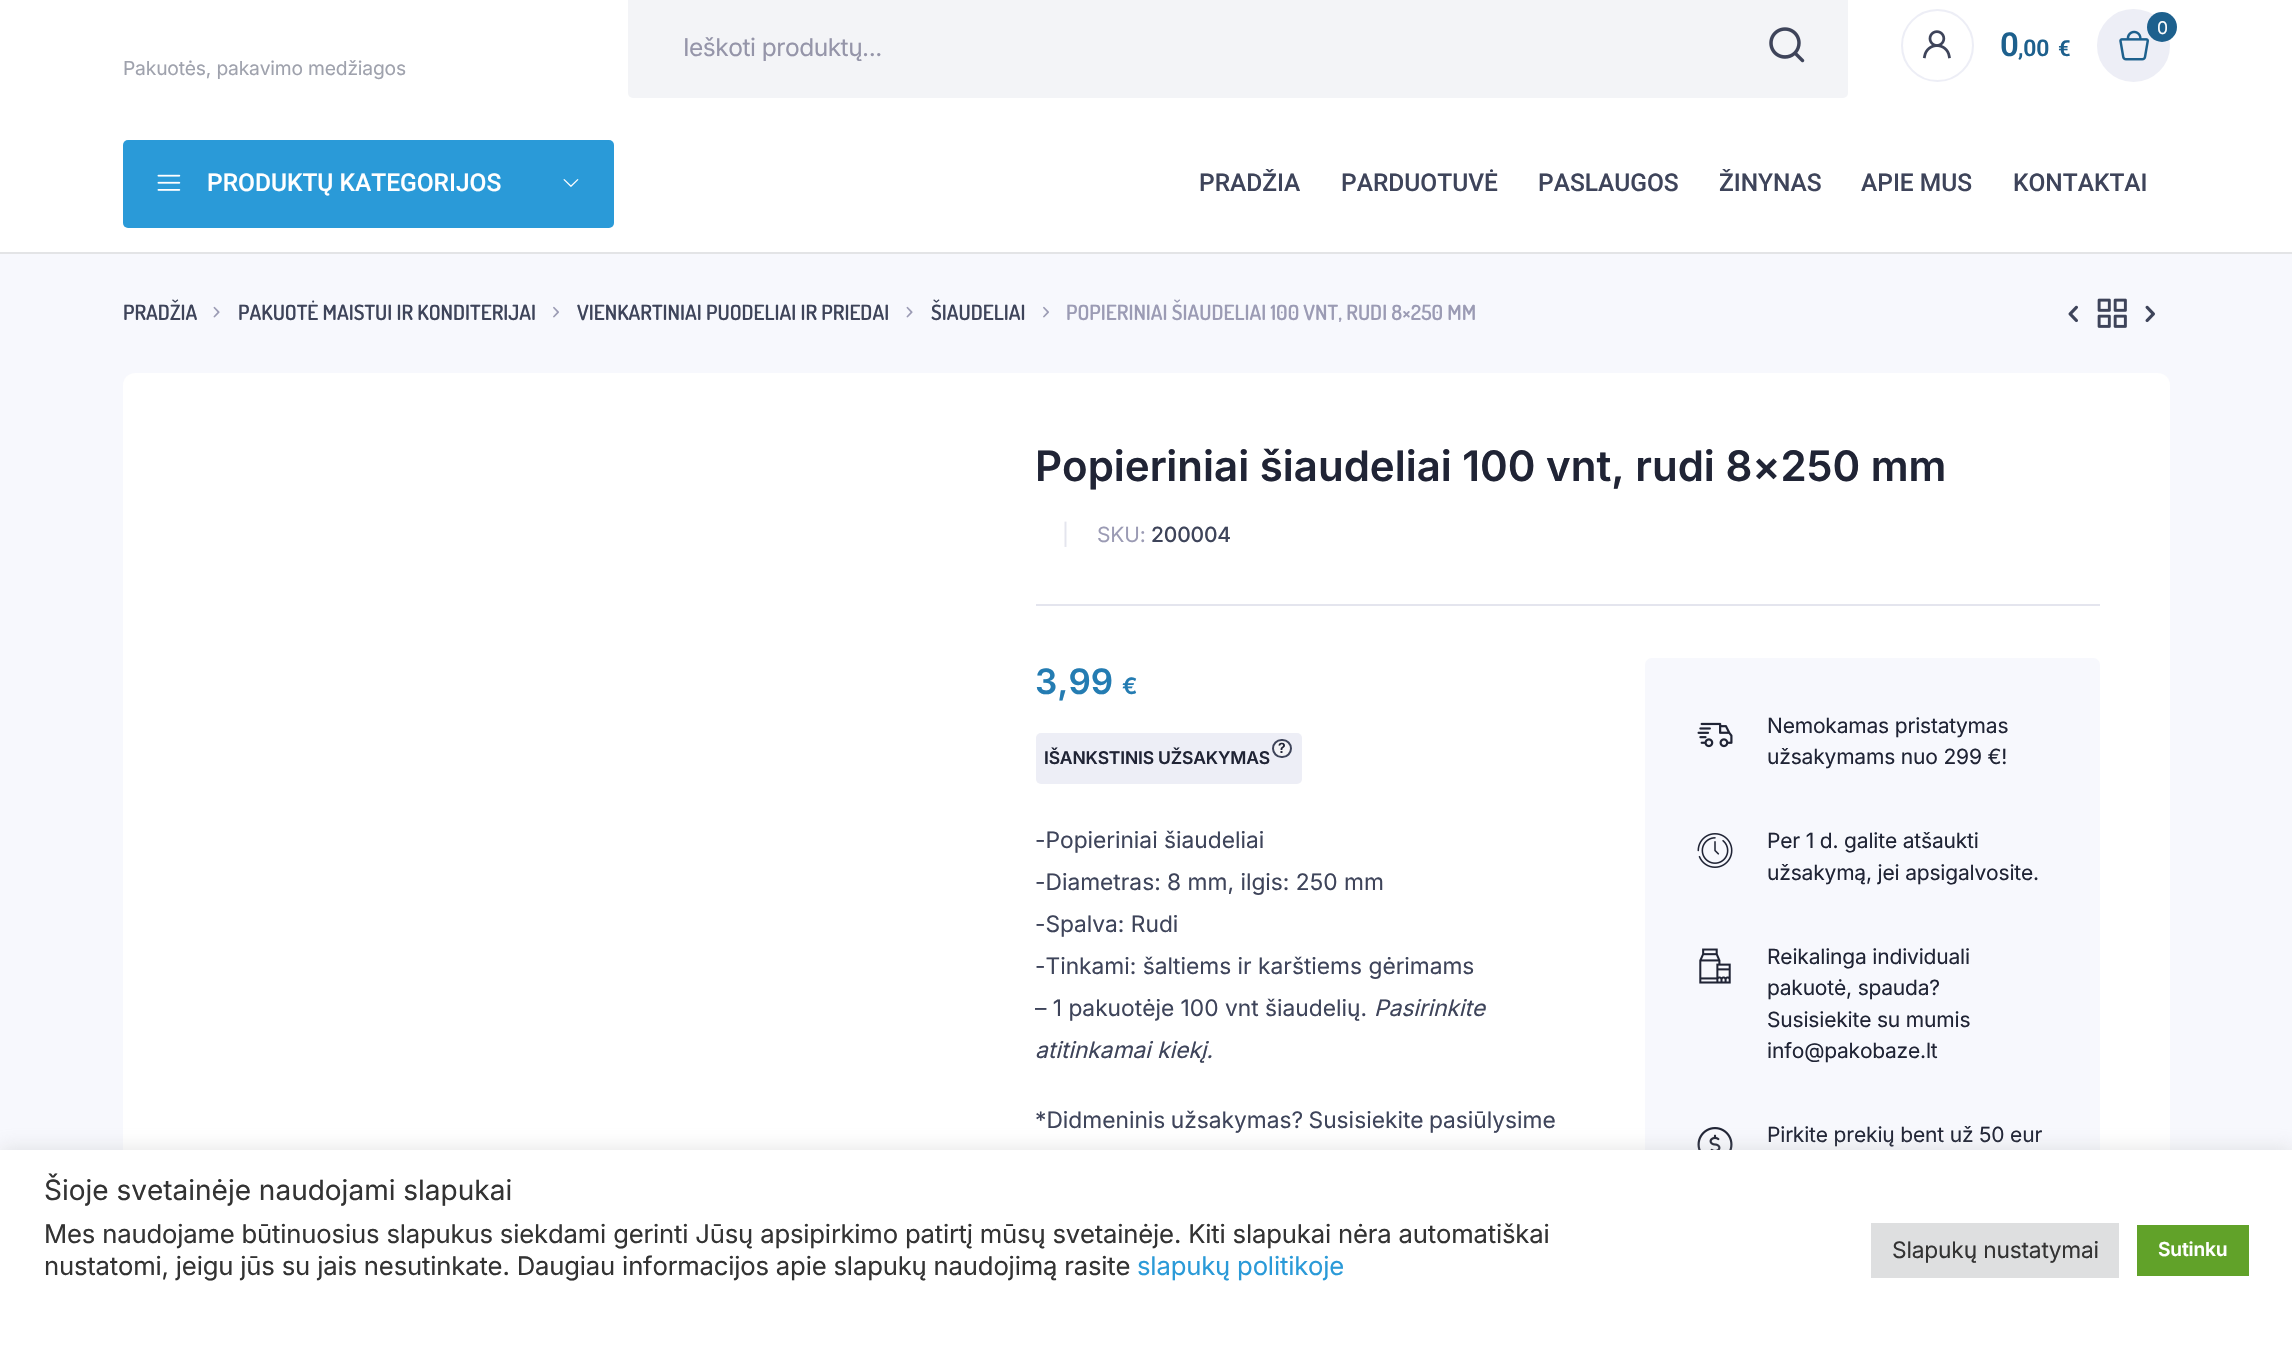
#include "include/core/SkBlurTypes.h"
#include "include/core/SkCanvas.h"
#include "include/core/SkData.h"
#include "include/core/SkFont.h"
#include "include/core/SkFontMgr.h"
#include "include/core/SkImage.h"
#include "include/core/SkMaskFilter.h"
#include "include/core/SkPaint.h"
#include "include/core/SkPathBuilder.h"
#include "include/core/SkTextBlob.h"
#include "include/effects/SkDashPathEffect.h"
#include "include/effects/SkGradientShader.h"
#include "include/utils/SkParsePath.h"

extern sk_sp<SkFontMgr> fontMgr;

void draw(SkCanvas* canvas) {
    SkPaint p;
    p.setAntiAlias(true);
    auto font = [&](const char* family, int weight, float size, bool italic = false) {
        SkFontStyle style(weight, SkFontStyle::kNormal_Width,
            italic ? SkFontStyle::kItalic_Slant : SkFontStyle::kUpright_Slant);
        SkFont result(fontMgr->matchFamilyStyle(family, style), size);
        result.setSubpixel(true);
        return result;
    };
    auto drawTracked = [&](const char* s, float x, float y, const SkFont& font, const SkPaint& ink, float letter, float word) {
        std::vector<SkGlyphID> glyphs(font.countText(s, strlen(s), SkTextEncoding::kUTF8));
        std::vector<float> xs(glyphs.size());
        font.textToGlyphs(s, strlen(s), SkTextEncoding::kUTF8, glyphs);
        font.getXPos(glyphs, xs, x);
        float extra = 0;
        for (size_t i = 0; i < glyphs.size(); i++) {
            xs[i] += extra;
            extra += letter + word * (glyphs[i] == font.unicharToGlyph(' '));
        }
        canvas->drawTextBlob(SkTextBlob::MakeFromPosHGlyphs(glyphs, xs, y, font), 0, 0, ink);
    };
    auto drawPhoto = [&](const char* path, float l, float t, float r, float b) {
        auto image = SkImages::DeferredFromEncodedData(SkData::MakeFromFileName(path));
        canvas->drawImageRect(image, SkRect::MakeLTRB(l, t, r, b), SkSamplingOptions());
    };
    canvas->clear(0xFFFFFFFF);
    p.setColor(0xFFF3F4F7);
    canvas->drawRoundRect(SkRect::MakeLTRB(628, -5, 1848, 98), 5, 5, p);
    canvas->save();
    canvas->clipRect(SkRect::MakeLTRB(683, 32, 1734, 61));
    auto font1 = font("Inter", 400, 24.5f);
    p.setColor(0xFF9595A9);
    drawTracked("Ieškoti produktų...", 683, 56, font1, p, -0.5f, 0);
    canvas->restore();
    drawPhoto("media/1.png", 1769, 27, 1805, 63);
    p.setStyle(SkPaint::kStroke_Style);
    p.setStrokeWidth(2);
    p.setColor(0xFFEDEEF6);
    canvas->drawCircle(1937.5f, 45.5f, 35.5f, p);
    drawPhoto("media/2.png", 1922, 30, 1951, 59);
    p.setStyle(SkPaint::kFill_Style);
    canvas->drawCircle(2133.5f, 45.5f, 35.5f, p);
    p.setStyle(SkPaint::kStroke_Style);
    canvas->drawCircle(2133.5f, 45.5f, 35.5f, p);
    drawPhoto("media/3.png", 2119, 30, 2149, 61);
    p.setStyle(SkPaint::kFill_Style);
    p.setColor(0xFF1D608D);
    canvas->drawCircle(2162, 27, 15, p);
    auto font2 = font("Inter", 400, 17.5f);
    p.setColor(0xFFFFFFFF);
    drawTracked("0", 2157, 34, font2, p, -0.18f, 0);
    auto font3 = font("Roboto", 600, 33);
    p.setColor(0xFF1D608D);
    drawTracked("0", 2000, 56, font3, p, -0.18f, 0);
    auto font4 = font("Roboto", 600, 23);
    drawTracked(",00", 2018, 56, font4, p, -0.18f, 0);
    auto font5 = font("Roboto", 600, 22);
    drawTracked("€", 2058, 56, font5, p, -0.18f, 0);
    auto font6 = font("Inter", 400, 19.25f);
    p.setColor(0xFF9FA2AD);
    drawTracked("Pakuotės, pakavimo medžiagos", 123, 75, font6, p, -0.18f, 0);
    p.setColor(0xFFE3E4E6);
    canvas->drawRect(SkRect::MakeLTRB(0, 252, 2292, 254), p);
    p.setColor(0xFF2A9AD8);
    canvas->drawRoundRect(SkRect::MakeLTRB(123, 140, 614, 228), 5, 5, p);
    drawPhoto("media/4.png", 157, 174, 181, 191);
    auto font7 = font("Roboto", 500, 24.5f);
    p.setColor(0xFFFFFFFF);
    canvas->drawString("PRODUKTŲ KATEGORIJOS", 207, 191, font7, p);
    drawPhoto("media/5.png", 563, 179, 579, 187);
    p.setColor(0xFF3E445A);
    {
        const struct { const char* s; float x, y; } items[] = {
            {"PRADŽIA", 1199, 191},
            {"PARDUOTUVĖ", 1341, 191},
            {"PASLAUGOS", 1538, 191},
            {"ŽINYNAS", 1719, 191},
            {"APIE MUS", 1861, 191},
            {"KONTAKTAI", 2013, 191},
        };
        for (auto [s, x, y] : items) {
            canvas->drawString(s, x, y, font7, p);
        }
    }
    p.setColor(0xFFF7F8FD);
    canvas->drawRect(SkRect::MakeLTRB(0, 254, 2292, 1150), p);
    auto font8 = font("Dosis", 600, 21);
    p.setColor(0xFF3E445A);
    canvas->drawString("PRADŽIA", 123, 320, font8, p);
    drawPhoto("media/6.png", 213, 306, 220, 318);
    canvas->drawString("PAKUOTĖ MAISTUI IR KONDITERIJAI", 238, 320, font8, p);
    drawPhoto("media/7.png", 553, 306, 559, 318);
    canvas->drawString("VIENKARTINIAI PUODELIAI IR PRIEDAI", 577, 320, font8, p);
    drawPhoto("media/6.png", 906, 306, 913, 318);
    canvas->drawString("ŠIAUDELIAI", 931, 320, font8, p);
    drawPhoto("media/7.png", 1043, 306, 1049, 318);
    p.setColor(0xFF9B9BB4);
    canvas->drawString("POPIERINIAI ŠIAUDELIAI 100 VNT, RUDI 8×250 MM", 1066, 320, font8, p);
    drawPhoto("media/8.png", 2068, 305, 2078, 323);
    drawPhoto("media/9.png", 2097, 298, 2127, 328);
    drawPhoto("media/10.png", 2145, 305, 2155, 323);
    p.setColor(0xFFFFFFFF);
    canvas->drawRoundRect(SkRect::MakeLTRB(123, 373, 2170, 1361), 12, 12, p);
    p.setColor(0xFFE4E5EE);
    canvas->drawRect(SkRect::MakeLTRB(1036, 604, 2100, 606), p);
    auto font9 = font("Inter", 600, 42);
    p.setColor(0xFF202435);
    canvas->drawString("Popieriniai šiaudeliai 100 vnt, rudi 8×250 mm", 1035, 481, font9, p);
    auto font10 = font("Inter", 400, 21);
    p.setColor(0xFFE4E5EE);
    drawTracked("|", 1062, 542, font10, p, -0.18f, 0);
    p.setColor(0xFF9B9BB4);
    drawTracked("SKU:", 1097, 542, font10, p, -0.18f, 0);
    auto font11 = font("Inter", 500, 21);
    p.setColor(0xFF3E445A);
    drawTracked("200004", 1151, 542, font11, p, -0.18f, 0);
    auto font12 = font("Inter", 600, 35);
    p.setColor(0xFF247CB2);
    canvas->drawString("3,99", 1035, 694, font12, p);
    auto font13 = font("Inter", 600, 22.75f);
    canvas->drawString("€", 1122, 694, font13, p);
    p.setColor(0xFFEDEEF6);
    canvas->drawRoundRect(SkRect::MakeLTRB(1036, 733, 1302, 784), 5, 5, p);
    auto font14 = font("Inter", 600, 17.5f);
    p.setColor(0xFF202435);
    drawTracked("IŠANKSTINIS UŽSAKYMAS", 1044, 764, font14, p, -0.18f, 0);
    p.setColor(0xFFF3F3F6);
    canvas->drawRoundRect(SkRect::MakeLTRB(1273, 740, 1291, 757), 8.5f, 8.5f, p);
    p.setStyle(SkPaint::kStroke_Style);
    p.setColor(0xFF3E445A);
    canvas->drawRoundRect(SkRect::MakeLTRB(1273, 740, 1291, 757), 8.5f, 8.5f, p);
    auto font15 = font("Inter", 600, 14);
    p.setStyle(SkPaint::kFill_Style);
    p.setColor(0xFF202435);
    drawTracked("?", 1278, 753, font15, p, -0.18f, 0);
    auto font16 = font("Inter", 400, 22.75f);
    p.setColor(0xFF3E445A);
    {
        const struct { const char* s; float x, y; } items[] = {
            {"-Popieriniai šiaudeliai", 1035, 848},
            {"-Diametras: 8 mm, ilgis: 250 mm", 1035, 890},
            {"-Spalva: Rudi", 1035, 932},
            {"-Tinkami: šaltiems ir karštiems gėrimams", 1035, 974},
            {"– 1 pakuotėje 100 vnt šiaudelių.", 1035, 1016},
        };
        for (auto [s, x, y] : items) {
            canvas->drawString(s, x, y, font16, p);
        }
    }
    auto font17 = font("Inter", 400, 22.75f, true);
    canvas->drawString("Pasirinkite", 1374, 1016, font17, p);
    canvas->drawString("atitinkamai kiekį.", 1035, 1058, font17, p);
    drawTracked("*Didmeninis užsakymas? Susisiekite pasiūlysime", 1035, 1128, font16, p, 0, -1);
    p.setColor(0xFFF7F8FD);
    canvas->drawRoundRect(SkRect::MakeLTRB(1645, 658, 2100, 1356), 7, 7, p);
    drawPhoto("media/11.png", 1697, 722, 1733, 748);
    p.setColor(0xFF202435);
    drawTracked("Nemokamas pristatymas", 1767, 733, font10, p, -0.18f, 0);
    drawTracked("užsakymams nuo 299 €!", 1767, 764, font10, p, -0.18f, 0);
    drawPhoto("media/12.png", 1697, 833, 1733, 868);
    drawTracked("Per 1 d. galite atšaukti", 1767, 848, font10, p, -0.18f, 0);
    drawTracked("užsakymą, jei apsigalvosite.", 1767, 880, font10, p, -0.18f, 0);
    drawPhoto("media/13.png", 1699, 948, 1731, 984);
    {
        const struct { const char* s; float x, y; } items[] = {
            {"Reikalinga individuali", 1767, 964},
            {"pakuotė, spauda?", 1767, 995},
            {"Susisiekite su mumis", 1767, 1027},
            {"info@pakobaze.lt", 1767, 1058},
        };
        for (auto [s, x, y] : items) {
            drawTracked(s, x, y, font10, p, -0.18f, 0);
        }
    }
    drawPhoto("media/14.png", 1697, 1127, 1733, 1150);
    drawTracked("Pirkite prekių bent už 50 eur", 1767, 1142, font10, p, -0.18f, 0);
    p.setColor(0x4DACABAB);
    p.setMaskFilter(SkMaskFilter::MakeBlur(kNormal_SkBlurStyle, 9));
    canvas->drawRect(SkRect::MakeLTRB(0, 1148, 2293, 1348), p);
    p.setMaskFilter(nullptr);
    p.setColor(0xFFFFFFFF);
    canvas->drawRect(SkRect::MakeLTRB(0, 1150, 2292, 1349), p);
    auto font18 = font("Inter", 400, 28);
    p.setColor(0xFF333333);
    canvas->drawString("Šioje svetainėje naudojami slapukai", 44, 1200, font18, p);
    auto font19 = font("Inter", 400, 25.67f);
    drawTracked("Mes naudojame būtinuosius slapukus siekdami gerinti Jūsų apsipirkimo patirtį mūsų svetainėje. Kiti slapukai nėra automatiškai", 44, 1243, font19, p, -0.18f, 0);
    drawTracked("nustatomi, jeigu jūs su jais nesutinkate. Daugiau informacijos apie slapukų naudojimą rasite", 44, 1275, font19, p, -0.18f, 0);
    p.setColor(0xFF2A9AD8);
    drawTracked("slapukų politikoje", 1137, 1275, font19, p, -0.18f, 0);
    p.setColor(0xFFDEDFE0);
    canvas->drawRect(SkRect::MakeLTRB(1871, 1223, 2119, 1278), p);
    p.setColor(0xFF333333);
    drawTracked("Slapukų nustatymai", 1892, 1258, font16, p, -0.18f, 0);
    p.setColor(0xFF61A229);
    canvas->drawRect(SkRect::MakeLTRB(2137, 1225, 2249, 1276), p);
    auto font20 = font("Inter", 600, 19.25f);
    p.setColor(0xFFFFFFFF);
    drawTracked("Sutinku", 2158, 1256, font20, p, -0.18f, 0);
}
